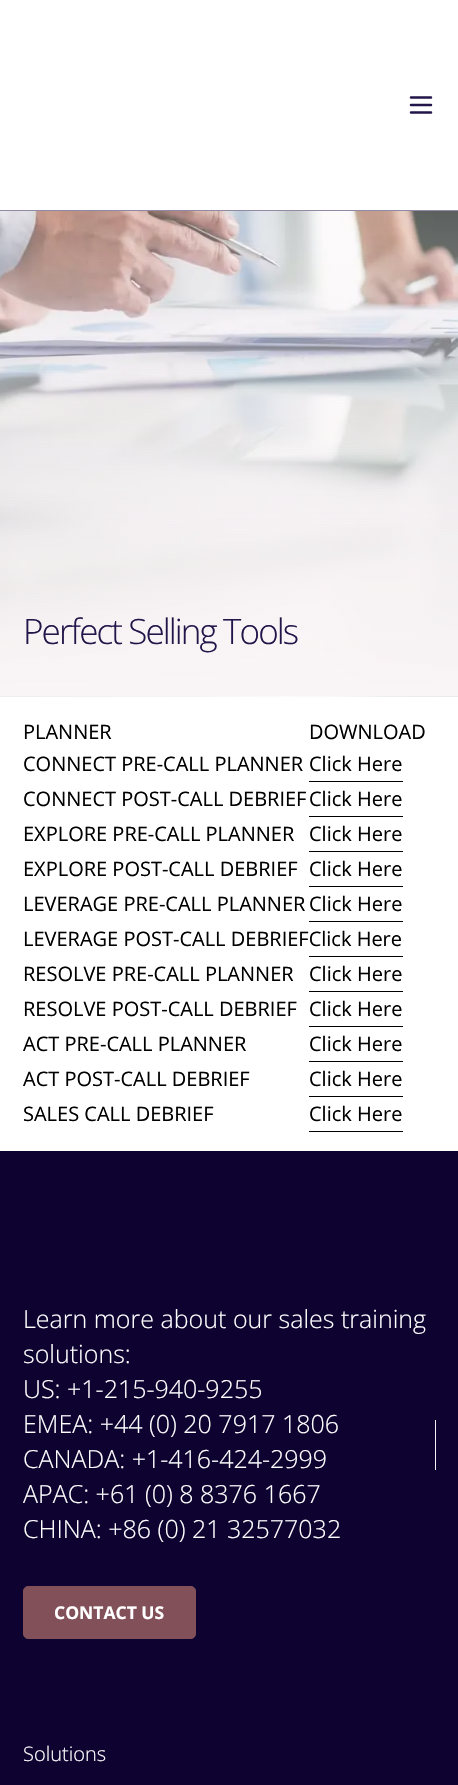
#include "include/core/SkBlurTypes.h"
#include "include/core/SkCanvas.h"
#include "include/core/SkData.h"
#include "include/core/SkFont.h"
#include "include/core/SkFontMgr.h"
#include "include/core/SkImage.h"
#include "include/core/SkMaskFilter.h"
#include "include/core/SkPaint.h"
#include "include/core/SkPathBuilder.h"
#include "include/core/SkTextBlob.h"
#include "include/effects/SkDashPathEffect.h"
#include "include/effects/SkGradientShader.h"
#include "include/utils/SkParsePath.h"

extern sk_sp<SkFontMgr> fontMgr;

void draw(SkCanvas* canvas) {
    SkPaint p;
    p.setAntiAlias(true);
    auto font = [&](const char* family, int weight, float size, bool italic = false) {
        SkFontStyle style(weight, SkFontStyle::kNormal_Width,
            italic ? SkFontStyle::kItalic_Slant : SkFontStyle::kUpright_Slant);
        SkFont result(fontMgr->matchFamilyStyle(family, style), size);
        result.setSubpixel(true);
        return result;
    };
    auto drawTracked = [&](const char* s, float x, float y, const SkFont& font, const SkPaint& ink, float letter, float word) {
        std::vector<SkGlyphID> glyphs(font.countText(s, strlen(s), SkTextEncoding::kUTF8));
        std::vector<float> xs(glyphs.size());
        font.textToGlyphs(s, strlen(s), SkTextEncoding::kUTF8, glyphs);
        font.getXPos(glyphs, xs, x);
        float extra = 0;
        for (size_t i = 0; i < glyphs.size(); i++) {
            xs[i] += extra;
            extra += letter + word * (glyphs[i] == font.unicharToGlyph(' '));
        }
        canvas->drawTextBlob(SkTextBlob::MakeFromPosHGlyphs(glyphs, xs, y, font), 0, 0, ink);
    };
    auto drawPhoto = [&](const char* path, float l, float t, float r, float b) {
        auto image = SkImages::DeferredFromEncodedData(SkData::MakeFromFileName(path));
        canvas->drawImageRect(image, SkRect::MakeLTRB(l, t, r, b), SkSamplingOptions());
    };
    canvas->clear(0xFFFFFFFF);
    p.setColor(0xFF908AA4);
    canvas->drawRect(SkRect::MakeLTRB(0, 210, 458, 211), p);
    p.setStyle(SkPaint::kStroke_Style);
    p.setStrokeWidth(2.5f);
    p.setStrokeCap(SkPaint::kRound_Cap);
    p.setStrokeJoin(SkPaint::kRound_Join);
    p.setColor(0xFF21154A);
    canvas->drawPath(SkPathBuilder().moveTo(411, 105).lineTo(431, 105).moveTo(411, 97.5f).lineTo(431, 97.5f).moveTo(411, 112.5f).lineTo(431, 112.5f).detach(), p);
    drawPhoto("media/1.png", 0, 211, 458, 697);
    auto font1 = font("Open Sans", 300, 35);
    p.setStyle(SkPaint::kFill_Style);
    drawTracked("Perfect Selling Tools", 23, 644, font1, p, -1.9f, 0);
    auto font2 = font("Open Sans", 400, 20);
    p.setColor(0xFF000000);
    {
        const struct { const char* s; float x, y; } items[] = {
            {"PLANNER", 23, 739},
            {"DOWNLOAD", 309, 739},
            {"CONNECT PRE-CALL PLANNER", 23, 771},
            {"Click Here", 309, 771},
        };
        for (auto [s, x, y] : items) {
            canvas->drawString(s, x, y, font2, p);
        }
    }
    canvas->drawRect(SkRect::MakeLTRB(309, 781, 403, 782), p);
    canvas->drawString("CONNECT POST-CALL DEBRIEF", 23, 806, font2, p);
    canvas->drawString("Click Here", 309, 806, font2, p);
    canvas->drawRect(SkRect::MakeLTRB(309, 816, 403, 817), p);
    canvas->drawString("EXPLORE PRE-CALL PLANNER", 23, 841, font2, p);
    canvas->drawString("Click Here", 309, 841, font2, p);
    canvas->drawRect(SkRect::MakeLTRB(309, 851, 403, 852), p);
    canvas->drawString("EXPLORE POST-CALL DEBRIEF", 23, 876, font2, p);
    canvas->drawString("Click Here", 309, 876, font2, p);
    canvas->drawRect(SkRect::MakeLTRB(309, 886, 403, 887), p);
    canvas->drawString("LEVERAGE PRE-CALL PLANNER", 23, 911, font2, p);
    canvas->drawString("Click Here", 309, 911, font2, p);
    canvas->drawRect(SkRect::MakeLTRB(309, 921, 403, 922), p);
    canvas->drawString("LEVERAGE POST-CALL DEBRIEFClick Here", 23, 946, font2, p);
    canvas->drawRect(SkRect::MakeLTRB(309, 956, 403, 957), p);
    canvas->drawString("RESOLVE PRE-CALL PLANNER", 23, 981, font2, p);
    canvas->drawString("Click Here", 309, 981, font2, p);
    canvas->drawRect(SkRect::MakeLTRB(309, 991, 403, 992), p);
    canvas->drawString("RESOLVE POST-CALL DEBRIEF", 23, 1016, font2, p);
    canvas->drawString("Click Here", 309, 1016, font2, p);
    canvas->drawRect(SkRect::MakeLTRB(309, 1026, 403, 1027), p);
    canvas->drawString("ACT PRE-CALL PLANNER", 23, 1051, font2, p);
    canvas->drawString("Click Here", 309, 1051, font2, p);
    canvas->drawRect(SkRect::MakeLTRB(309, 1061, 403, 1062), p);
    canvas->drawString("ACT POST-CALL DEBRIEF", 23, 1086, font2, p);
    canvas->drawString("Click Here", 309, 1086, font2, p);
    canvas->drawRect(SkRect::MakeLTRB(309, 1096, 403, 1097), p);
    canvas->drawString("SALES CALL DEBRIEF", 23, 1121, font2, p);
    canvas->drawString("Click Here", 309, 1121, font2, p);
    canvas->drawRect(SkRect::MakeLTRB(309, 1131, 403, 1132), p);
    p.setColor(0xFF0D0230);
    canvas->drawRect(SkRect::MakeLTRB(0, 1151, 458, 1785), p);
    auto font3 = font("Open Sans", 300, 25);
    p.setColor(0xFFFFFFFF);
    {
        const struct { const char* s; float x, y; } items[] = {
            {"Learn more about our sales training", 23, 1328},
            {"solutions:", 23, 1363},
            {"US: +1-215-940-9255", 23, 1398},
            {"EMEA: +44 (0) 20 7917 1806", 23, 1433},
            {"CANADA: +1-416-424-2999", 23, 1468},
            {"APAC: +61 (0) 8 8376 1667", 23, 1503},
            {"CHINA: +86 (0) 21 32577032", 23, 1538},
        };
        for (auto [s, x, y] : items) {
            canvas->drawString(s, x, y, font3, p);
        }
    }
    p.setColor(0xFFF3F1F5);
    canvas->drawRect(SkRect::MakeLTRB(435, 1420, 436, 1470), p);
    p.setColor(0xFF815059);
    canvas->drawRoundRect(SkRect::MakeLTRB(23.5f, 1586.5f, 195.5f, 1638.5f), 4.5f, 4.5f, p);
    p.setStyle(SkPaint::kStroke_Style);
    p.setStrokeWidth(1);
    p.setStrokeCap(SkPaint::kButt_Cap);
    p.setStrokeJoin(SkPaint::kMiter_Join);
    canvas->drawRoundRect(SkRect::MakeLTRB(23.5f, 1586.5f, 195.5f, 1638.5f), 4.5f, 4.5f, p);
    auto font4 = font("Open Sans", 700, 17.5f);
    p.setStyle(SkPaint::kFill_Style);
    p.setColor(0xFFFFFFFF);
    canvas->drawString("CONTACT US", 54, 1619, font4, p);
    auto font5 = font("Open Sans", 300, 20);
    canvas->drawString("Solutions", 23, 1761, font5, p);
}
